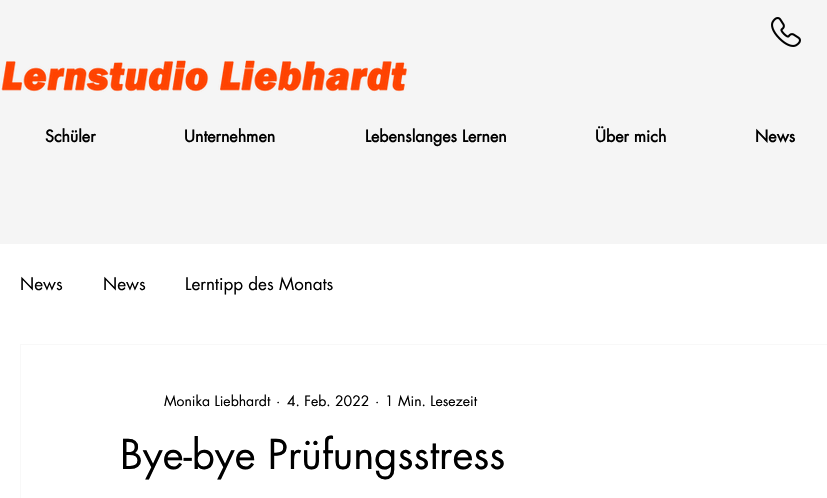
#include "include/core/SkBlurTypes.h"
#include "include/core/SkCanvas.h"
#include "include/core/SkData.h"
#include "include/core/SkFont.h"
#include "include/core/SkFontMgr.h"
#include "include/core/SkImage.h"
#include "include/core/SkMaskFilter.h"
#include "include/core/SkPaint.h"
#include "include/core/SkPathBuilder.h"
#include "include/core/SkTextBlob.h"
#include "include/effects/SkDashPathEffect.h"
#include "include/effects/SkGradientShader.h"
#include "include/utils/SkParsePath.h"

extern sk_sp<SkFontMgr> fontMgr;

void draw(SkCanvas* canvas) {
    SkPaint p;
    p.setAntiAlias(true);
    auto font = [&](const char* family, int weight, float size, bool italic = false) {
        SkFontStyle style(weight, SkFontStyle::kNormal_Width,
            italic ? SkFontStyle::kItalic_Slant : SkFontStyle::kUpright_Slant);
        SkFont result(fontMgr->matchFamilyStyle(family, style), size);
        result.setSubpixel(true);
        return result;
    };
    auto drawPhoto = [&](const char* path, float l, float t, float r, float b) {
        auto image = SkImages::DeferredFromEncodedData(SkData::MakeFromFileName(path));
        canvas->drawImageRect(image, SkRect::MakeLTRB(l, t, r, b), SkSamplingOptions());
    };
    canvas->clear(0xFFF5F5F5);
    drawPhoto("media/1.png", 771, 17, 801, 47);
    drawPhoto("media/2.png", 0, 60, 409, 92);
    auto font1 = font("futura", 700, 16);
    p.setColor(0xFF000000);
    {
        const struct { const char* s; float x, y; } items[] = {
            {"Schüler", 45, 142},
            {"Unternehmen", 184, 142},
            {"Lebenslanges Lernen", 365, 142},
            {"Über mich", 595, 142},
            {"News", 755, 142},
        };
        for (auto [s, x, y] : items) {
            canvas->drawString(s, x, y, font1, p);
        }
    }
    p.setColor(0xFFFFFFFF);
    canvas->drawRect(SkRect::MakeLTRB(0, 244, 827, 498), p);
    auto font2 = font("futura", 400, 17);
    p.setColor(0xFF000000);
    {
        const struct { const char* s; float x, y; } items[] = {
            {"News", 20, 290},
            {"News", 103, 290},
            {"Lerntipp des Monats", 185, 290},
        };
        for (auto [s, x, y] : items) {
            canvas->drawString(s, x, y, font2, p);
        }
    }
    p.setStyle(SkPaint::kStroke_Style);
    p.setStrokeWidth(1);
    p.setColor(0xFFF8F8F8);
    canvas->drawRect(SkRect::MakeLTRB(20.5f, 344.5f, 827.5f, 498.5f), p);
    auto font3 = font("futura", 400, 14);
    p.setStyle(SkPaint::kFill_Style);
    p.setColor(0xFF000000);
    {
        const struct { const char* s; float x, y; } items[] = {
            {"Monika Liebhardt", 164, 406},
            {"·", 276, 406},
            {"4. Feb. 2022", 287, 406},
            {"·", 375, 406},
            {"1 Min. Lesezeit", 385, 406},
        };
        for (auto [s, x, y] : items) {
            canvas->drawString(s, x, y, font3, p);
        }
    }
    auto font4 = font("futura", 400, 40);
    canvas->drawString("Bye-bye Prüfungsstress", 120, 469, font4, p);
}
